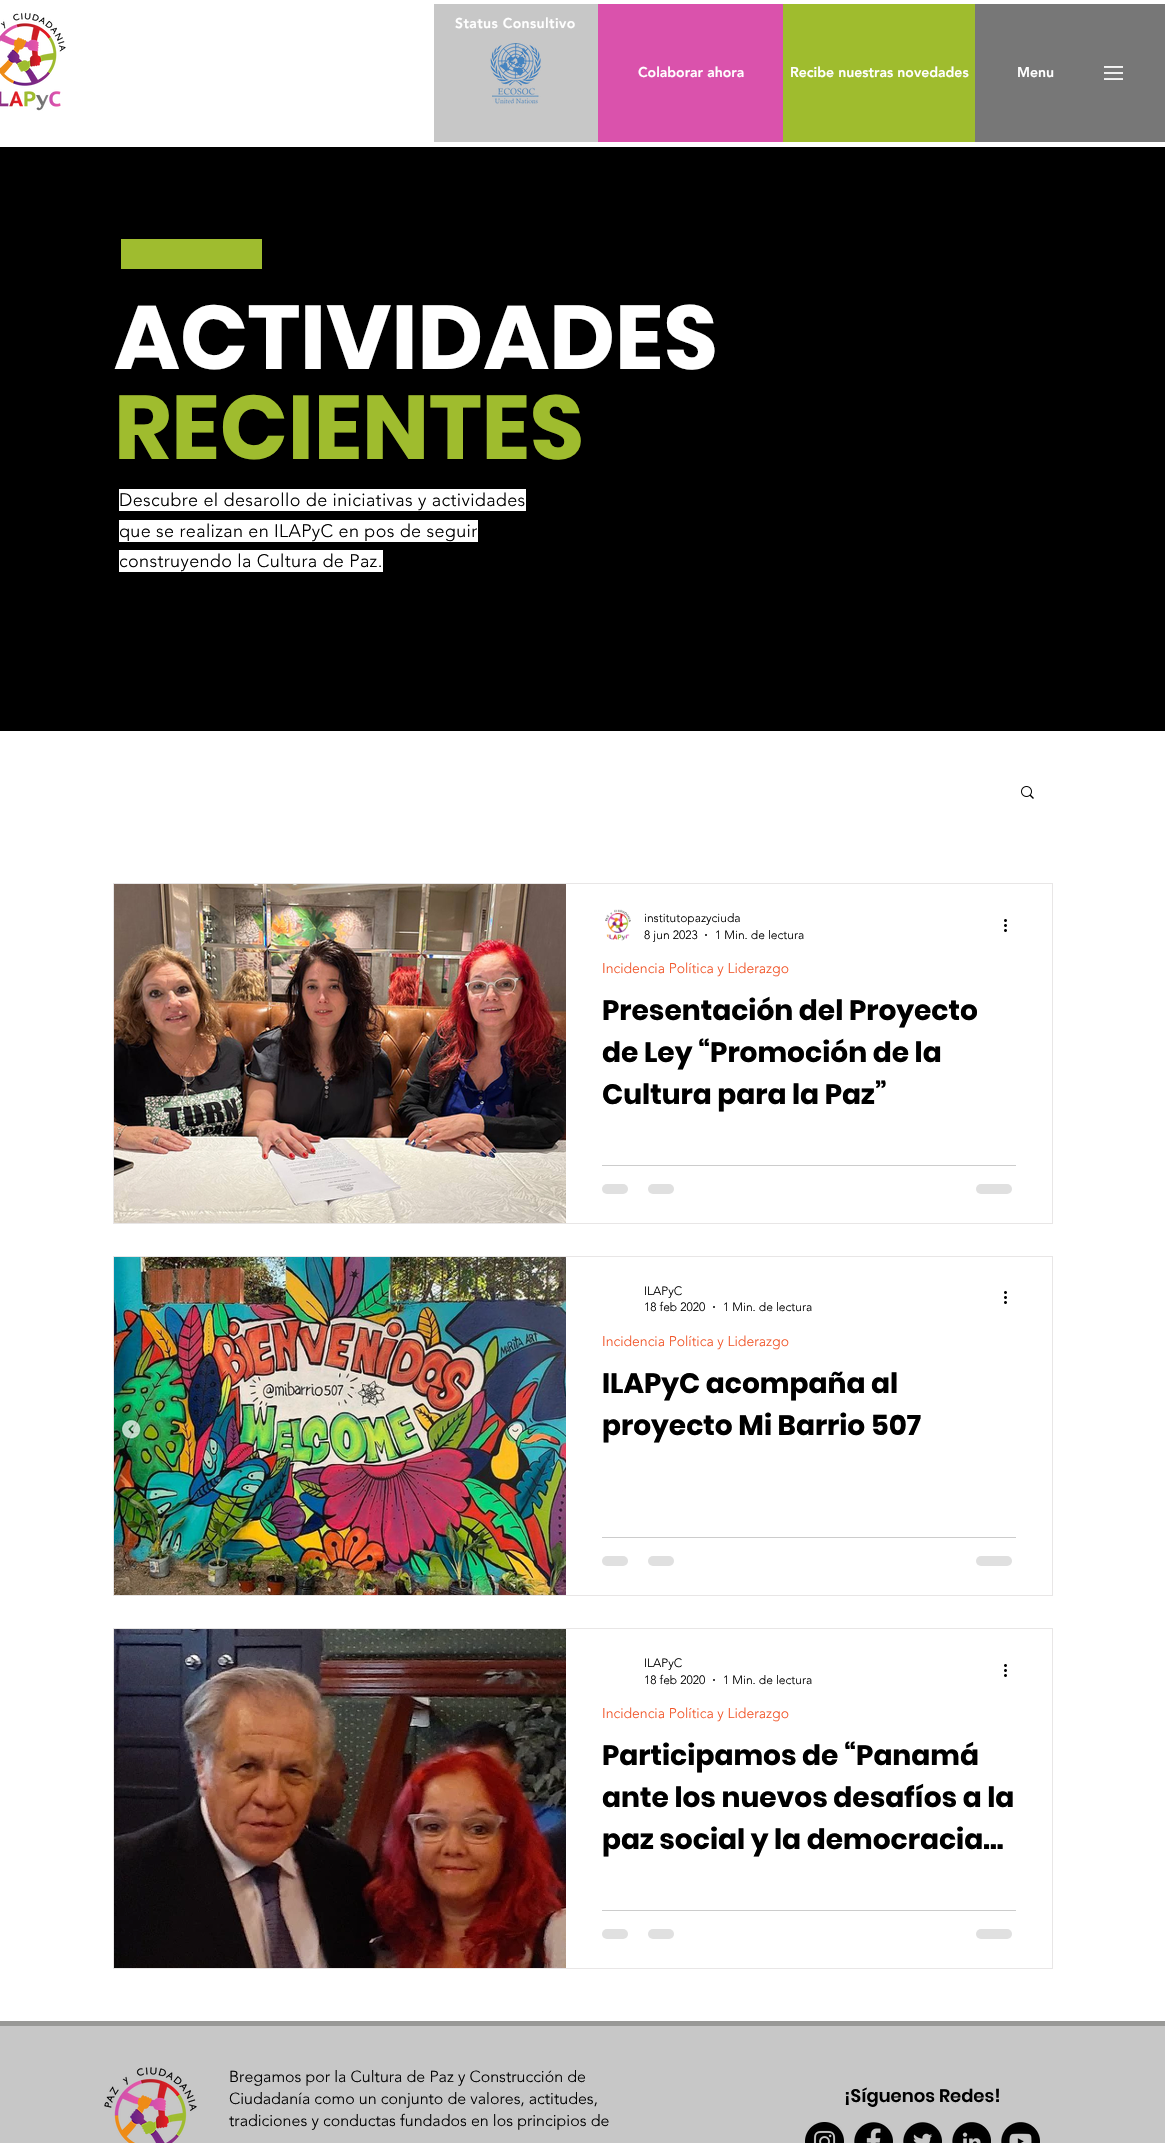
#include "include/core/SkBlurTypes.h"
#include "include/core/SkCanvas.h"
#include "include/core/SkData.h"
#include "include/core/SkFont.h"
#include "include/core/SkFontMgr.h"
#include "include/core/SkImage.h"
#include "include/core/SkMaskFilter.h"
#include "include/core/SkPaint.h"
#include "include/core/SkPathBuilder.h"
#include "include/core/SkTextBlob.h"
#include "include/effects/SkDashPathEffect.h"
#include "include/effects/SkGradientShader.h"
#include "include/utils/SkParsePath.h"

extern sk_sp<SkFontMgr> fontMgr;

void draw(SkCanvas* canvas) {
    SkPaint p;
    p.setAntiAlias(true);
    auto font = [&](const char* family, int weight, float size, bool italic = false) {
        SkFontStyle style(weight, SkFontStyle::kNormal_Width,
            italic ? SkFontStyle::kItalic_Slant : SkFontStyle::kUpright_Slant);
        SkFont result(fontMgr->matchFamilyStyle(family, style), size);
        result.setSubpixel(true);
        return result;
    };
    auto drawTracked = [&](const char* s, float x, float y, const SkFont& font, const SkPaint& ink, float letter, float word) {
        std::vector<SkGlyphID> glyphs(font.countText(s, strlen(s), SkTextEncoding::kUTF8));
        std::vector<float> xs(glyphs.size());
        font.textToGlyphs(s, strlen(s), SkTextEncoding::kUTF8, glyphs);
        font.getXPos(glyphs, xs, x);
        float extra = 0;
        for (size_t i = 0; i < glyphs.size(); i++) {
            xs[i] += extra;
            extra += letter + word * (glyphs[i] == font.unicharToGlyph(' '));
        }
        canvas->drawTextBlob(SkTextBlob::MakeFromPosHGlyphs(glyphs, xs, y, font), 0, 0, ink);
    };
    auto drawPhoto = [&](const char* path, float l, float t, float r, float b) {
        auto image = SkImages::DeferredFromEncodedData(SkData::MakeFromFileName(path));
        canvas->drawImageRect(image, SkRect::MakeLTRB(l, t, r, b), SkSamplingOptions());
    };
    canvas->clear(0xFFFFFFFF);
    drawPhoto("media/1.png", 0, 12, 66, 111);
    p.setColor(0xFFC7C7C7);
    canvas->drawRect(SkRect::MakeLTRB(434, 4, 598, 142), p);
    auto font1 = font("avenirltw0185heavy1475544", 900, 14);
    p.setColor(0xFFFFFFFF);
    drawTracked("Status Consultivo", 455, 28, font1, p, 0.4f, 0);
    drawPhoto("media/2.png", 490, 43, 541, 104);
    p.setColor(0xFFDA52AC);
    canvas->drawRect(SkRect::MakeLTRB(598, 4, 783, 142), p);
    p.setColor(0xFFFFFFFF);
    canvas->drawString("Colaborar ahora", 638, 77, font1, p);
    p.setColor(0xFF9FBC2E);
    canvas->drawRect(SkRect::MakeLTRB(783, 4, 975, 142), p);
    p.setColor(0xFFFFFFFF);
    canvas->drawString("Recibe nuestras novedades", 790, 77, font1, p);
    p.setColor(0xFF777777);
    canvas->drawRect(SkRect::MakeLTRB(975, 4, 1165, 142), p);
    p.setColor(0xFFFFFFFF);
    canvas->drawString("Menu", 1017, 77, font1, p);
    drawPhoto("media/3.png", 1104, 66, 1123, 80);
    p.setColor(0xFF000000);
    canvas->drawRect(SkRect::MakeLTRB(0, 147, 1165, 731), p);
    p.setColor(0xFF9FBC2F);
    canvas->drawRect(SkRect::MakeLTRB(121, 239, 262, 269), p);
    auto font2 = font("Poppins", 700, 90);
    p.setColor(0xFFFFFFFF);
    canvas->drawString("ACTIVIDADES", 114, 369, font2, p);
    p.setColor(0xFF9FBC2E);
    canvas->drawString("RECIENTES", 114, 459, font2, p);
    p.setColor(0xFFFFFFFF);
    canvas->drawRect(SkRect::MakeLTRB(119, 489, 526, 511), p);
    auto font3 = font("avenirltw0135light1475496", 300, 18);
    p.setColor(0xFF000000);
    drawTracked("Descubre el desarollo de iniciativas y actividades", 119, 506, font3, p, 0.35f, 0);
    p.setColor(0xFFFFFFFF);
    canvas->drawRect(SkRect::MakeLTRB(119, 520, 478, 542), p);
    p.setColor(0xFF000000);
    drawTracked("que se realizan en ILAPyC en pos de seguir", 119, 537, font3, p, 0.35f, 0);
    p.setColor(0xFFFFFFFF);
    canvas->drawRect(SkRect::MakeLTRB(119, 550, 383, 572), p);
    p.setColor(0xFF000000);
    drawTracked("construyendo la Cultura de Paz.", 119, 567, font3, p, 0.35f, 0);
    drawPhoto("media/4.png", 1021, 786, 1034, 799);
    p.setStyle(SkPaint::kStroke_Style);
    p.setStrokeWidth(1);
    p.setColor(0xFFE8E6E6);
    canvas->drawRect(SkRect::MakeLTRB(113.5f, 883.5f, 1052.5f, 1223.5f), p);
    drawPhoto("media/5.png", 114, 884, 566, 1223);
    drawPhoto("media/6.png", 605, 909, 631, 941);
    auto font4 = font("avenirltw0135light1475496", 300, 12);
    p.setStyle(SkPaint::kFill_Style);
    p.setColor(0xFF000000);
    canvas->drawString("institutopazyciuda", 644, 922, font4, p);
    canvas->drawString("8 jun 2023", 644, 939, font4, p);
    canvas->drawCircle(706, 935, 1, p);
    canvas->drawString("1 Min. de lectura", 715, 939, font4, p);
    drawPhoto("media/7.png", 1004, 919, 1007, 932);
    auto font5 = font("avenirltw0135light1475496", 300, 14);
    p.setColor(0xFFF1562A);
    canvas->drawString("Incidencia Política y Liderazgo", 602, 973, font5, p);
    auto font6 = font("Poppins", 700, 28);
    p.setColor(0xFF000000);
    {
        const struct { const char* s; float x, y; } items[] = {
            {"Presentación del Proyecto", 602, 1020},
            {"de Ley “Promoción de la", 602, 1062},
            {"Cultura para la Paz”", 602, 1104},
        };
        for (auto [s, x, y] : items) {
            canvas->drawString(s, x, y, font6, p);
        }
    }
    p.setColor(0xFFCCCCCC);
    canvas->drawRect(SkRect::MakeLTRB(602, 1165, 1016, 1166), p);
    p.setColor(0xFFE0E0E0);
    canvas->drawRoundRect(SkRect::MakeLTRB(602, 1184, 628, 1194), 5, 5, p);
    canvas->drawRoundRect(SkRect::MakeLTRB(648, 1184, 674, 1194), 5, 5, p);
    canvas->drawRoundRect(SkRect::MakeLTRB(976, 1184, 1012, 1194), 5, 5, p);
    p.setStyle(SkPaint::kStroke_Style);
    p.setColor(0xFFE8E6E6);
    canvas->drawRect(SkRect::MakeLTRB(113.5f, 1256.5f, 1052.5f, 1595.5f), p);
    drawPhoto("media/8.png", 114, 1257, 566, 1595);
    p.setStyle(SkPaint::kFill_Style);
    p.setColor(0xFF000000);
    canvas->drawString("ILAPyC", 644, 1295, font4, p);
    canvas->drawString("18 feb 2020", 644, 1311, font4, p);
    canvas->drawCircle(714, 1307, 1, p);
    canvas->drawString("1 Min. de lectura", 723, 1311, font4, p);
    drawPhoto("media/7.png", 1004, 1291, 1007, 1304);
    p.setColor(0xFFF1562A);
    canvas->drawString("Incidencia Política y Liderazgo", 602, 1346, font5, p);
    p.setColor(0xFF000000);
    canvas->drawString("ILAPyC acompaña al", 602, 1393, font6, p);
    canvas->drawString("proyecto Mi Barrio 507", 602, 1435, font6, p);
    p.setColor(0xFFCCCCCC);
    canvas->drawRect(SkRect::MakeLTRB(602, 1537, 1016, 1538), p);
    p.setColor(0xFFE0E0E0);
    canvas->drawRoundRect(SkRect::MakeLTRB(602, 1556, 628, 1566), 5, 5, p);
    canvas->drawRoundRect(SkRect::MakeLTRB(648, 1556, 674, 1566), 5, 5, p);
    canvas->drawRoundRect(SkRect::MakeLTRB(976, 1556, 1012, 1566), 5, 5, p);
    p.setStyle(SkPaint::kStroke_Style);
    p.setColor(0xFFE8E6E6);
    canvas->drawRect(SkRect::MakeLTRB(113.5f, 1628.5f, 1052.5f, 1968.5f), p);
    drawPhoto("media/9.png", 114, 1629, 566, 1968);
    p.setStyle(SkPaint::kFill_Style);
    p.setColor(0xFF000000);
    canvas->drawString("ILAPyC", 644, 1667, font4, p);
    canvas->drawString("18 feb 2020", 644, 1684, font4, p);
    canvas->drawCircle(714, 1680, 1, p);
    canvas->drawString("1 Min. de lectura", 723, 1684, font4, p);
    drawPhoto("media/7.png", 1004, 1664, 1007, 1677);
    p.setColor(0xFFF1562A);
    canvas->drawString("Incidencia Política y Liderazgo", 602, 1718, font5, p);
    p.setColor(0xFF000000);
    {
        const struct { const char* s; float x, y; } items[] = {
            {"Participamos de “Panamá", 602, 1765},
            {"ante los nuevos desafíos a la", 602, 1807},
            {"paz social y la democracia…", 602, 1849},
        };
        for (auto [s, x, y] : items) {
            canvas->drawString(s, x, y, font6, p);
        }
    }
    p.setColor(0xFFCCCCCC);
    canvas->drawRect(SkRect::MakeLTRB(602, 1910, 1016, 1911), p);
    p.setColor(0xFFE0E0E0);
    canvas->drawRoundRect(SkRect::MakeLTRB(602, 1929, 628, 1939), 5, 5, p);
    canvas->drawRoundRect(SkRect::MakeLTRB(648, 1929, 674, 1939), 5, 5, p);
    canvas->drawRoundRect(SkRect::MakeLTRB(976, 1929, 1012, 1939), 5, 5, p);
    p.setColor(0xFFC7C7C7);
    canvas->drawRect(SkRect::MakeLTRB(0, 2026, 1165, 2143), p);
    p.setColor(0xFF999997);
    canvas->drawRect(SkRect::MakeLTRB(0, 2021, 1165, 2026), p);
    drawPhoto("media/10.png", 104, 2067, 197, 2143);
    auto font7 = font("avenirltw0135light1475496", 300, 16);
    p.setColor(0xFF000000);
    {
        const struct { const char* s; float x, y; } items[] = {
            {"Bregamos por la Cultura de Paz y Construcción de", 229, 2082},
            {"Ciudadanía como un conjunto de valores, actitudes,", 229, 2104},
            {"tradiciones y conductas fundados en los principios de", 229, 2126},
        };
        for (auto [s, x, y] : items) {
            canvas->drawString(s, x, y, font7, p);
        }
    }
    auto font8 = font("Poppins", 600, 18);
    canvas->drawString("¡Síguenos Redes!", 844, 2102, font8, p);
    drawPhoto("media/11.png", 805, 2122, 844, 2143);
    drawPhoto("media/12.png", 854, 2122, 893, 2143);
    drawPhoto("media/13.png", 903, 2122, 942, 2143);
    drawPhoto("media/14.png", 952, 2122, 991, 2143);
    drawPhoto("media/15.png", 1001, 2122, 1040, 2143);
}
